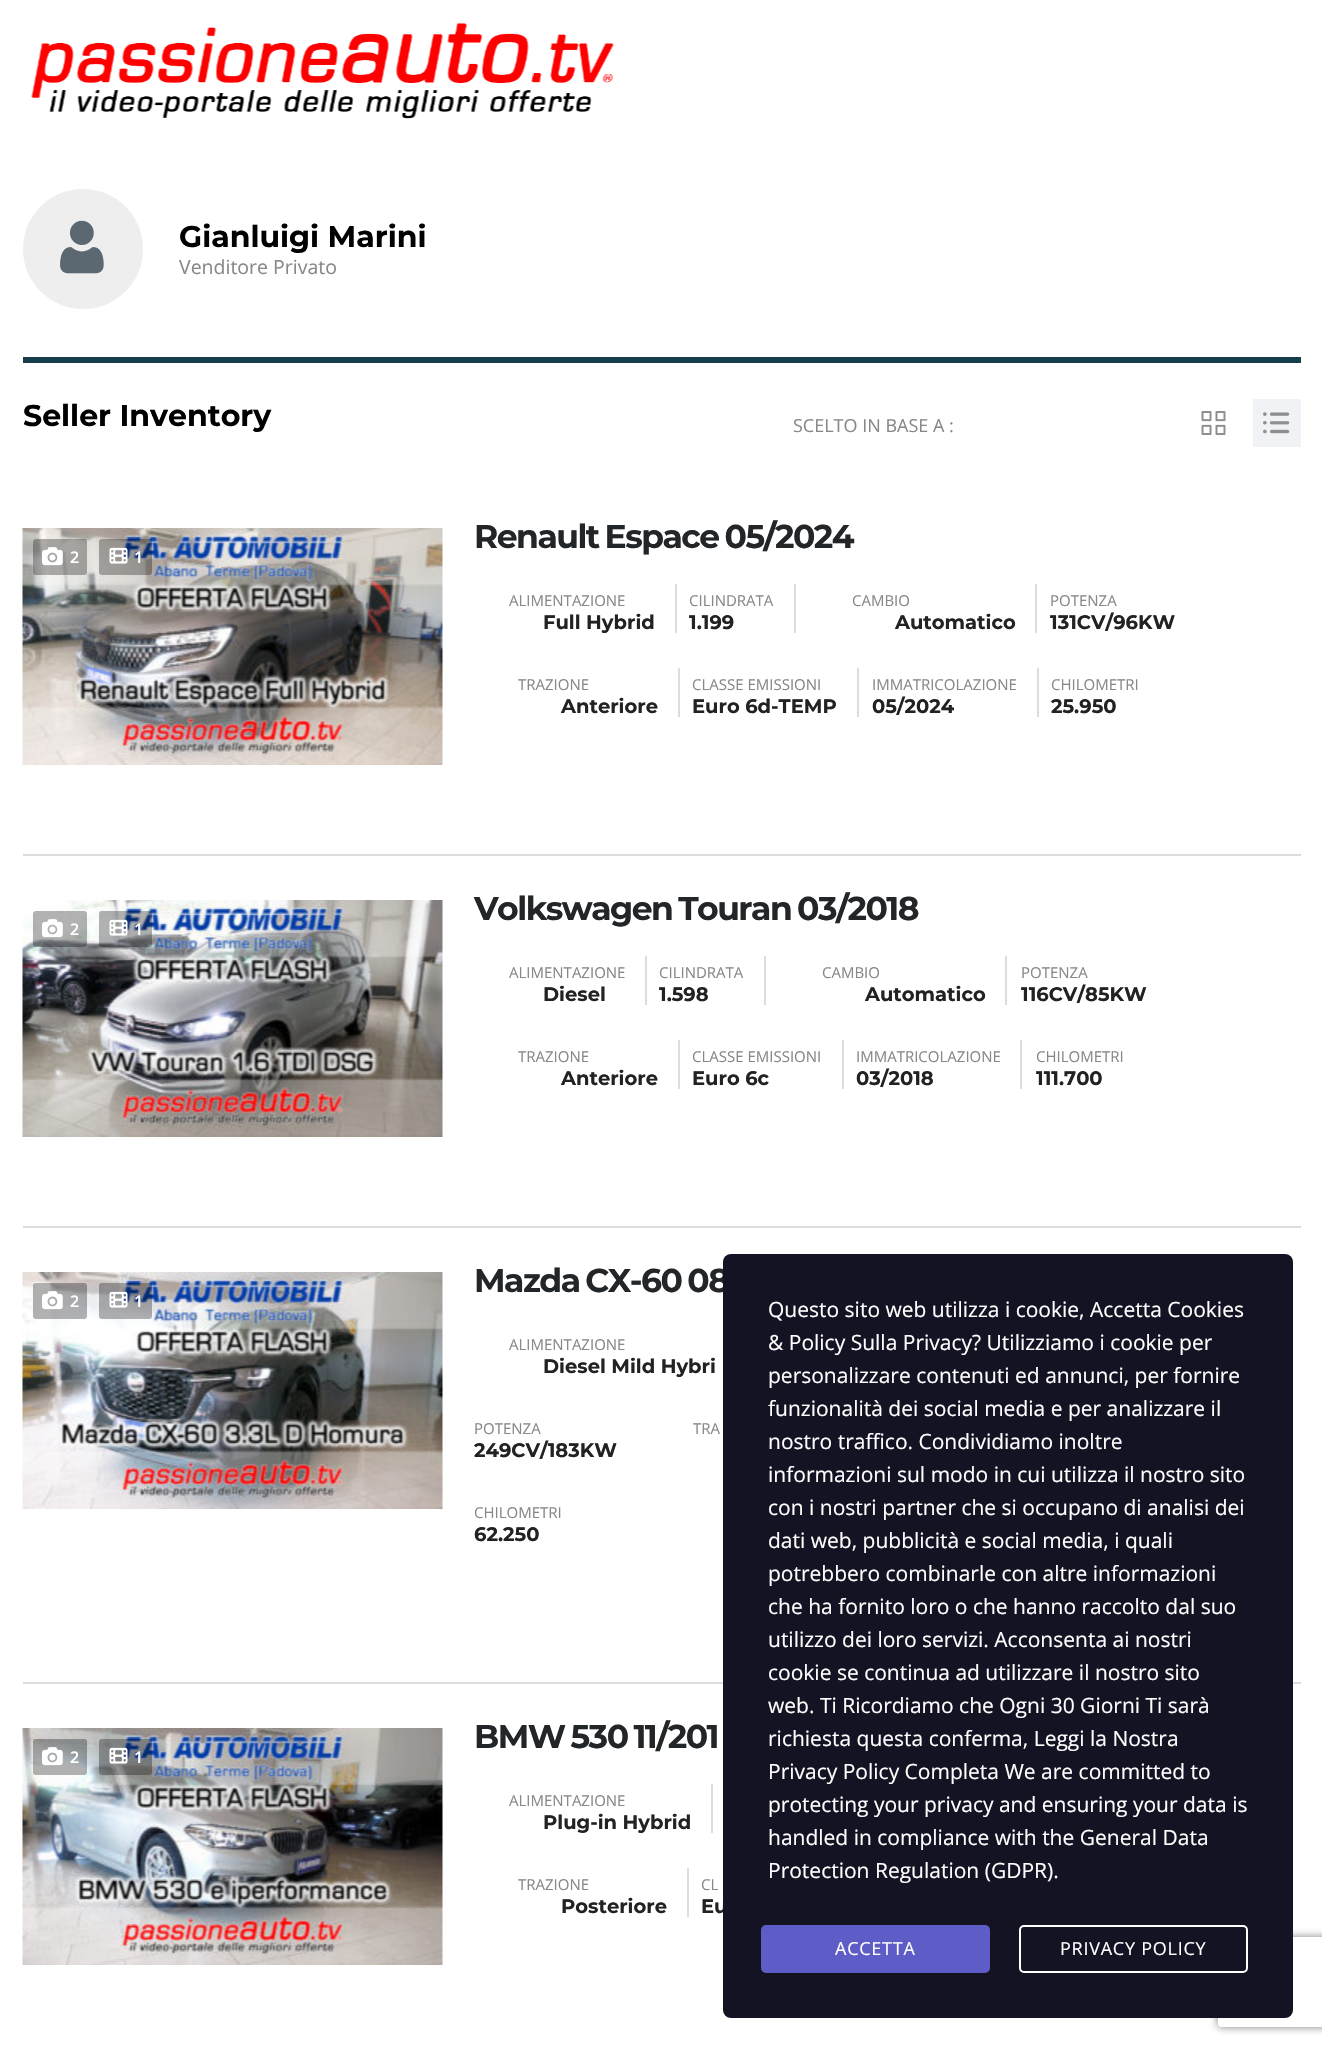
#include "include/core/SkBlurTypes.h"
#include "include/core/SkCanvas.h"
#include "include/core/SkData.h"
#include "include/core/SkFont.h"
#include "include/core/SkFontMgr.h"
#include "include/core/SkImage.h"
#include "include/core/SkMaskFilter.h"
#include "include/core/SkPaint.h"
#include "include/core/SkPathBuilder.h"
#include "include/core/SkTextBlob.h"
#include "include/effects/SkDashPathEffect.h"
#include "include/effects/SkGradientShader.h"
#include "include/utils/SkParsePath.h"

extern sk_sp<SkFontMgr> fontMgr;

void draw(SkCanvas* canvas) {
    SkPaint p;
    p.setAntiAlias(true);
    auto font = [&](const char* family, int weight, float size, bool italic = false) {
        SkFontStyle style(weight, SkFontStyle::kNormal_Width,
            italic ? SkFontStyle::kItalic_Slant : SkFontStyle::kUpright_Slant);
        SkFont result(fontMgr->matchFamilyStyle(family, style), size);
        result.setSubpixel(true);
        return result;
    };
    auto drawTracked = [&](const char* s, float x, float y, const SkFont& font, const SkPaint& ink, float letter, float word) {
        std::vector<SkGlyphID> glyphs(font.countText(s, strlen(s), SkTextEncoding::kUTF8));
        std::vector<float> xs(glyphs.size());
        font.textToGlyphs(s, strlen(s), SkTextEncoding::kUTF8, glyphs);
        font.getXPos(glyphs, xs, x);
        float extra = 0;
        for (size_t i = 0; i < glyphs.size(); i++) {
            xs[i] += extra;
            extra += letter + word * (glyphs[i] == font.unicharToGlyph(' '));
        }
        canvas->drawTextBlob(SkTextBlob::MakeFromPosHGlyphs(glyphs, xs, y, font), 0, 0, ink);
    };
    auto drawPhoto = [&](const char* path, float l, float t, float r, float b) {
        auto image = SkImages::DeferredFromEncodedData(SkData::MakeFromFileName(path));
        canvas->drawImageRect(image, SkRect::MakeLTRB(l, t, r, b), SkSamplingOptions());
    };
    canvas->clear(0xFFFFFFFF);
    drawPhoto("media/1.png", 31, 23, 614, 119);
    p.setColor(0xFF153E4D);
    canvas->drawRect(SkRect::MakeLTRB(23, 357, 1301, 363), p);
    p.setColor(0xFFEEEEEE);
    canvas->drawCircle(83, 249, 60, p);
    drawPhoto("media/2.png", 60, 220, 104, 274);
    auto font1 = font("Montserrat", 700, 30);
    p.setColor(0xFF000000);
    canvas->drawString("Gianluigi Marini", 179, 247, font1, p);
    auto font2 = font("Open Sans", 400, 19.5f);
    p.setColor(0xFF888888);
    canvas->drawString("Venditore Privato", 179, 274, font2, p);
    p.setColor(0xFF000000);
    canvas->drawString("Seller Inventory", 23, 426, font1, p);
    auto font3 = font("Open Sans", 400, 18);
    p.setColor(0xFF888888);
    canvas->drawString("SCELTO IN BASE A :", 793, 432, font3, p);
    drawPhoto("media/3.png", 1201, 411, 1226, 435);
    p.setColor(0xFFF0F2F5);
    canvas->drawRect(SkRect::MakeLTRB(1253, 399, 1301, 447), p);
    drawPhoto("media/4.png", 1263, 412, 1290, 434);
    p.setColor(0xFFDDDDDD);
    canvas->drawRect(SkRect::MakeLTRB(23, 854, 1301, 856), p);
    drawPhoto("media/5.png", 22, 528, 443, 765);
    p.setColor(0x4D000000);
    canvas->drawRoundRect(SkRect::MakeLTRB(33, 539, 87, 575), 3, 3, p);
    drawPhoto("media/6.png", 42, 547, 63, 566);
    auto font4 = font("Open Sans", 600, 16);
    p.setColor(0xFFFFFFFF);
    canvas->drawString("2", 70, 563, font4, p);
    p.setColor(0x4D000000);
    canvas->drawRoundRect(SkRect::MakeLTRB(99, 539, 152, 575), 3, 3, p);
    drawPhoto("media/7.png", 109, 547, 128, 564);
    p.setColor(0xFFFFFFFF);
    canvas->drawString("1", 134, 563, font4, p);
    auto font5 = font("Montserrat", 700, 33);
    p.setColor(0xFF232628);
    drawTracked("Renault Espace 05/2024", 474, 548, font5, p, -1.5f, -2);
    p.setColor(0xFFDDDDDD);
    canvas->drawRect(SkRect::MakeLTRB(675, 584, 677, 633), p);
    auto font6 = font("Open Sans", 400, 15);
    p.setColor(0xFF888888);
    canvas->drawString("ALIMENTAZIONE", 509, 606, font6, p);
    auto font7 = font("Montserrat", 700, 19.5f);
    p.setColor(0xFF222222);
    canvas->drawString("Full Hybrid", 543, 629, font7, p);
    p.setColor(0xFFDDDDDD);
    canvas->drawRect(SkRect::MakeLTRB(794, 584, 796, 633), p);
    p.setColor(0xFF888888);
    canvas->drawString("CILINDRATA", 689, 606, font6, p);
    p.setColor(0xFF222222);
    canvas->drawString("1.199", 689, 629, font7, p);
    p.setColor(0xFFDDDDDD);
    canvas->drawRect(SkRect::MakeLTRB(1035, 584, 1037, 633), p);
    p.setColor(0xFF888888);
    canvas->drawString("CAMBIO", 852, 606, font6, p);
    p.setColor(0xFF222222);
    canvas->drawString("Automatico", 895, 629, font7, p);
    p.setColor(0xFF888888);
    canvas->drawString("POTENZA", 1050, 606, font6, p);
    p.setColor(0xFF222222);
    canvas->drawString("131CV/96KW", 1050, 629, font7, p);
    p.setColor(0xFFDDDDDD);
    canvas->drawRect(SkRect::MakeLTRB(678, 668, 680, 717), p);
    p.setColor(0xFF888888);
    canvas->drawString("TRAZIONE", 518, 690, font6, p);
    p.setColor(0xFF222222);
    canvas->drawString("Anteriore", 561, 713, font7, p);
    p.setColor(0xFFDDDDDD);
    canvas->drawRect(SkRect::MakeLTRB(857, 668, 859, 717), p);
    p.setColor(0xFF888888);
    canvas->drawString("CLASSE EMISSIONI", 692, 690, font6, p);
    p.setColor(0xFF222222);
    canvas->drawString("Euro 6d-TEMP", 692, 713, font7, p);
    p.setColor(0xFFDDDDDD);
    canvas->drawRect(SkRect::MakeLTRB(1037, 668, 1039, 717), p);
    p.setColor(0xFF888888);
    canvas->drawString("IMMATRICOLAZIONE", 872, 690, font6, p);
    p.setColor(0xFF222222);
    canvas->drawString("05/2024", 872, 713, font7, p);
    p.setColor(0xFF888888);
    canvas->drawString("CHILOMETRI", 1051, 690, font6, p);
    p.setColor(0xFF222222);
    canvas->drawString("25.950", 1051, 713, font7, p);
    p.setColor(0xFFDDDDDD);
    canvas->drawRect(SkRect::MakeLTRB(23, 1226, 1301, 1228), p);
    drawPhoto("media/8.png", 22, 900, 443, 1137);
    p.setColor(0x4D000000);
    canvas->drawRoundRect(SkRect::MakeLTRB(33, 911, 87, 947), 3, 3, p);
    drawPhoto("media/9.png", 42, 919, 63, 938);
    p.setColor(0xFFFFFFFF);
    canvas->drawString("2", 70, 935, font4, p);
    p.setColor(0x4D000000);
    canvas->drawRoundRect(SkRect::MakeLTRB(99, 911, 152, 947), 3, 3, p);
    drawPhoto("media/10.png", 109, 919, 128, 936);
    p.setColor(0xFFFFFFFF);
    canvas->drawString("1", 134, 935, font4, p);
    p.setColor(0xFF232628);
    drawTracked("Volkswagen Touran 03/2018", 474, 920, font5, p, -1.5f, -2);
    p.setColor(0xFFDDDDDD);
    canvas->drawRect(SkRect::MakeLTRB(645, 956, 647, 1005), p);
    p.setColor(0xFF888888);
    canvas->drawString("ALIMENTAZIONE", 509, 978, font6, p);
    p.setColor(0xFF222222);
    canvas->drawString("Diesel", 543, 1001, font7, p);
    p.setColor(0xFFDDDDDD);
    canvas->drawRect(SkRect::MakeLTRB(764, 956, 766, 1005), p);
    p.setColor(0xFF888888);
    canvas->drawString("CILINDRATA", 659, 978, font6, p);
    p.setColor(0xFF222222);
    canvas->drawString("1.598", 659, 1001, font7, p);
    p.setColor(0xFFDDDDDD);
    canvas->drawRect(SkRect::MakeLTRB(1005, 956, 1007, 1005), p);
    p.setColor(0xFF888888);
    canvas->drawString("CAMBIO", 822, 978, font6, p);
    p.setColor(0xFF222222);
    canvas->drawString("Automatico", 865, 1001, font7, p);
    p.setColor(0xFF888888);
    canvas->drawString("POTENZA", 1021, 978, font6, p);
    p.setColor(0xFF222222);
    canvas->drawString("116CV/85KW", 1021, 1001, font7, p);
    p.setColor(0xFFDDDDDD);
    canvas->drawRect(SkRect::MakeLTRB(678, 1040, 680, 1089), p);
    p.setColor(0xFF888888);
    canvas->drawString("TRAZIONE", 518, 1062, font6, p);
    p.setColor(0xFF222222);
    canvas->drawString("Anteriore", 561, 1085, font7, p);
    p.setColor(0xFFDDDDDD);
    canvas->drawRect(SkRect::MakeLTRB(842, 1040, 844, 1089), p);
    p.setColor(0xFF888888);
    canvas->drawString("CLASSE EMISSIONI", 692, 1062, font6, p);
    p.setColor(0xFF222222);
    canvas->drawString("Euro 6c", 692, 1085, font7, p);
    p.setColor(0xFFDDDDDD);
    canvas->drawRect(SkRect::MakeLTRB(1020, 1040, 1022, 1089), p);
    p.setColor(0xFF888888);
    canvas->drawString("IMMATRICOLAZIONE", 856, 1062, font6, p);
    p.setColor(0xFF222222);
    canvas->drawString("03/2018", 856, 1085, font7, p);
    p.setColor(0xFF888888);
    canvas->drawString("CHILOMETRI", 1036, 1062, font6, p);
    p.setColor(0xFF222222);
    canvas->drawString("111.700", 1036, 1085, font7, p);
    p.setColor(0xFFDDDDDD);
    canvas->drawRect(SkRect::MakeLTRB(23, 1682, 1301, 1684), p);
    drawPhoto("media/11.png", 22, 1272, 443, 1509);
    p.setColor(0x4D000000);
    canvas->drawRoundRect(SkRect::MakeLTRB(33, 1283, 87, 1319), 3, 3, p);
    drawPhoto("media/12.png", 42, 1291, 63, 1310);
    p.setColor(0xFFFFFFFF);
    canvas->drawString("2", 70, 1307, font4, p);
    p.setColor(0x4D000000);
    canvas->drawRoundRect(SkRect::MakeLTRB(99, 1283, 152, 1319), 3, 3, p);
    drawPhoto("media/13.png", 109, 1291, 128, 1308);
    p.setColor(0xFFFFFFFF);
    canvas->drawString("1", 134, 1307, font4, p);
    p.setColor(0xFF232628);
    drawTracked("Mazda CX-60 08", 474, 1292, font5, p, -1.5f, -2);
    p.setColor(0xFF888888);
    canvas->drawString("ALIMENTAZIONE", 509, 1350, font6, p);
    p.setColor(0xFF222222);
    canvas->drawString("Diesel Mild Hybri", 543, 1373, font7, p);
    p.setColor(0xFF888888);
    canvas->drawString("POTENZA", 474, 1434, font6, p);
    p.setColor(0xFF222222);
    canvas->drawString("249CV/183KW", 474, 1457, font7, p);
    p.setColor(0xFF888888);
    canvas->drawString("TRA", 693, 1434, font6, p);
    canvas->drawString("CHILOMETRI", 474, 1518, font6, p);
    p.setColor(0xFF222222);
    canvas->drawString("62.250", 474, 1541, font7, p);
    drawPhoto("media/14.png", 22, 1728, 443, 1965);
    p.setColor(0x4D000000);
    canvas->drawRoundRect(SkRect::MakeLTRB(33, 1739, 87, 1775), 3, 3, p);
    drawPhoto("media/15.png", 42, 1747, 63, 1766);
    p.setColor(0xFFFFFFFF);
    canvas->drawString("2", 70, 1763, font4, p);
    p.setColor(0x4D000000);
    canvas->drawRoundRect(SkRect::MakeLTRB(99, 1739, 152, 1775), 3, 3, p);
    drawPhoto("media/16.png", 109, 1747, 128, 1764);
    p.setColor(0xFFFFFFFF);
    canvas->drawString("1", 134, 1763, font4, p);
    p.setColor(0xFF232628);
    drawTracked("BMW 530 11/201", 474, 1748, font5, p, -1.5f, -2);
    p.setColor(0xFFDDDDDD);
    canvas->drawRect(SkRect::MakeLTRB(711, 1784, 713, 1833), p);
    p.setColor(0xFF888888);
    canvas->drawString("ALIMENTAZIONE", 509, 1806, font6, p);
    p.setColor(0xFF222222);
    canvas->drawString("Plug-in Hybrid", 543, 1829, font7, p);
    p.setColor(0xFFDDDDDD);
    canvas->drawRect(SkRect::MakeLTRB(687, 1868, 689, 1917), p);
    p.setColor(0xFF888888);
    canvas->drawString("TRAZIONE", 518, 1890, font6, p);
    p.setColor(0xFF222222);
    canvas->drawString("Posteriore", 561, 1913, font7, p);
    p.setColor(0xFF888888);
    canvas->drawString("CL", 701, 1890, font6, p);
    p.setColor(0xFF222222);
    canvas->drawString("Eu", 701, 1913, font7, p);
    canvas->save();
    canvas->clipPath(SkPathBuilder(SkPathFillType::kEvenOdd).moveTo(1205, 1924).lineTo(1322, 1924).lineTo(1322, 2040).lineTo(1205, 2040).close().moveTo(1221, 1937).lineTo(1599, 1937).cubicTo(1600.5f, 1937, 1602, 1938.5f, 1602, 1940).lineTo(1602, 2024).cubicTo(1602, 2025.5f, 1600.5f, 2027, 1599, 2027).lineTo(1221, 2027).cubicTo(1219.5f, 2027, 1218, 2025.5f, 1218, 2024).lineTo(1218, 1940).cubicTo(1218, 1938.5f, 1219.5f, 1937, 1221, 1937).close().detach(), true);
    p.setColor(0xFF808080);
    p.setMaskFilter(SkMaskFilter::MakeBlur(kNormal_SkBlurStyle, 4));
    canvas->drawRoundRect(SkRect::MakeLTRB(1218, 1937, 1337, 2027), 3, 3, p);
    p.setMaskFilter(nullptr);
    canvas->restore();
    p.setColor(0xFF131323);
    canvas->drawRoundRect(SkRect::MakeLTRB(723, 1254, 1293, 2018), 8, 8, p);
    auto font8 = font("Open Sans", 400, 21);
    p.setColor(0xFFFFFFFF);
    {
        const struct { const char* s; float x, y; } items[] = {
            {"Questo sito web utilizza i cookie, Accetta Cookies", 768, 1317},
            {"& Policy Sulla Privacy? Utilizziamo i cookie per", 768, 1350},
            {"personalizzare contenuti ed annunci, per fornire", 768, 1383},
            {"funzionalità dei social media e per analizzare il", 768, 1416},
            {"nostro traffico. Condividiamo inoltre", 768, 1449},
            {"informazioni sul modo in cui utilizza il nostro sito", 768, 1482},
            {"con i nostri partner che si occupano di analisi dei", 768, 1515},
            {"dati web, pubblicità e social media, i quali", 768, 1548},
            {"potrebbero combinarle con altre informazioni", 768, 1581},
            {"che ha fornito loro o che hanno raccolto dal suo", 768, 1614},
            {"utilizzo dei loro servizi. Acconsenta ai nostri", 768, 1647},
            {"cookie se continua ad utilizzare il nostro sito", 768, 1680},
            {"web. Ti Ricordiamo che Ogni 30 Giorni Ti sarà", 768, 1713},
            {"richiesta questa conferma, Leggi la Nostra", 768, 1746},
            {"Privacy Policy Completa We are committed to", 768, 1779},
            {"protecting your privacy and ensuring your data is", 768, 1812},
            {"handled in compliance with the General Data", 768, 1845},
            {"Protection Regulation (GDPR).", 768, 1878},
        };
        for (auto [s, x, y] : items) {
            canvas->drawString(s, x, y, font8, p);
        }
    }
    p.setColor(0xFF5E5CC7);
    canvas->drawRoundRect(SkRect::MakeLTRB(762, 1926, 989, 1972), 4, 4, p);
    p.setStyle(SkPaint::kStroke_Style);
    p.setStrokeWidth(2);
    canvas->drawRoundRect(SkRect::MakeLTRB(762, 1926, 989, 1972), 4, 4, p);
    p.setStyle(SkPaint::kFill_Style);
    p.setColor(0xFFFFFFFF);
    drawTracked("ACCETTA", 835, 1955, font3, p, 0.75f, 0);
    p.setStyle(SkPaint::kStroke_Style);
    canvas->drawRoundRect(SkRect::MakeLTRB(1020, 1926, 1247, 1972), 4, 4, p);
    p.setStyle(SkPaint::kFill_Style);
    drawTracked("PRIVACY POLICY", 1060, 1955, font3, p, 0.75f, 0);
}
